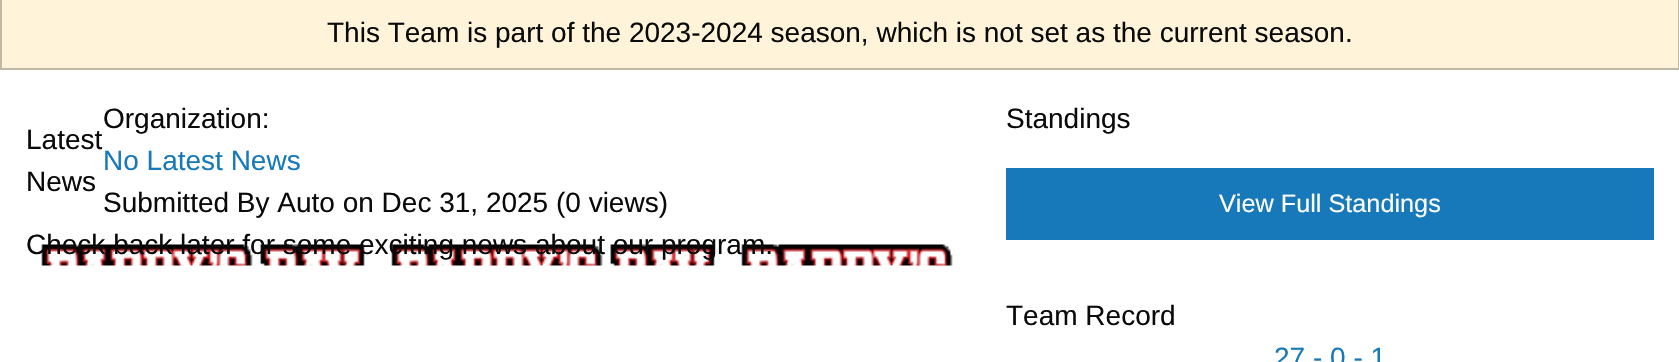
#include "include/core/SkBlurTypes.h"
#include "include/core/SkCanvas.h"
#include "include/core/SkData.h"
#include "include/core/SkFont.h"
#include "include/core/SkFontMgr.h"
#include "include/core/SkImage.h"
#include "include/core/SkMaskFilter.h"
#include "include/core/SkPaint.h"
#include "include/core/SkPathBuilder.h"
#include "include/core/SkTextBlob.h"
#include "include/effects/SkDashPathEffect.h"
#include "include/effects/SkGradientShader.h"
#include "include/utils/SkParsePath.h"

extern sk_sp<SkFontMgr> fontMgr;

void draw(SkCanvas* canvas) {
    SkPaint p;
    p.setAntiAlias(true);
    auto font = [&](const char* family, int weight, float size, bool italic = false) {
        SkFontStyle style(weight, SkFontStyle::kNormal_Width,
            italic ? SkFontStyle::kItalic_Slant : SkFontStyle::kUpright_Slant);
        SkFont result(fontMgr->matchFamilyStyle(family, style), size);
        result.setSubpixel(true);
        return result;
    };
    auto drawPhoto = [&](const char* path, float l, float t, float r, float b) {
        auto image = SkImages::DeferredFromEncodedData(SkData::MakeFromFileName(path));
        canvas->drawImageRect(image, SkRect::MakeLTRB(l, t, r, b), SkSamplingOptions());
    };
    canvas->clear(0xFFFFFFFF);
    p.setColor(0xFFFFF3D9);
    canvas->drawRect(SkRect::MakeLTRB(1, -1, 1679, 69), p);
    p.setStyle(SkPaint::kStroke_Style);
    p.setStrokeWidth(2);
    p.setColor(0xFFC2B9A5);
    canvas->drawRect(SkRect::MakeLTRB(1, -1, 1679, 69), p);
    auto font1 = font("Liberation Sans", 400, 28);
    p.setStyle(SkPaint::kFill_Style);
    p.setColor(0xFF0A0A0A);
    {
        const struct { const char* s; float x, y; } items[] = {
            {"This Team is part of the 2023-2024 season, which is not set as the current season.", 327, 42},
            {"Latest", 26, 149},
            {"News", 26, 191},
            {"Organization:", 103, 128},
        };
        for (auto [s, x, y] : items) {
            canvas->drawString(s, x, y, font1, p);
        }
    }
    p.setColor(0xFF1779BA);
    canvas->drawString("No Latest News", 103, 170, font1, p);
    p.setColor(0xFF0A0A0A);
    canvas->drawString("Submitted By Auto on Dec 31, 2025 (0 views)", 103, 212, font1, p);
    drawPhoto("media/1.png", 41, 244, 953, 266);
    canvas->drawString("Check back later for some exciting news about our program.", 26, 254, font1, p);
    canvas->drawString("Standings", 1006, 128, font1, p);
    p.setColor(0xFF1779BA);
    canvas->drawRect(SkRect::MakeLTRB(1006, 168, 1654, 240), p);
    auto font2 = font("Liberation Sans", 400, 25.25f);
    p.setColor(0xFFFEFEFE);
    canvas->drawString("View Full Standings", 1219, 212, font2, p);
    p.setColor(0xFF0A0A0A);
    canvas->drawString("Team Record", 1006, 325, font1, p);
    p.setColor(0xFF1779BA);
    canvas->drawString("27 - 0 - 1", 1274, 367, font1, p);
}
